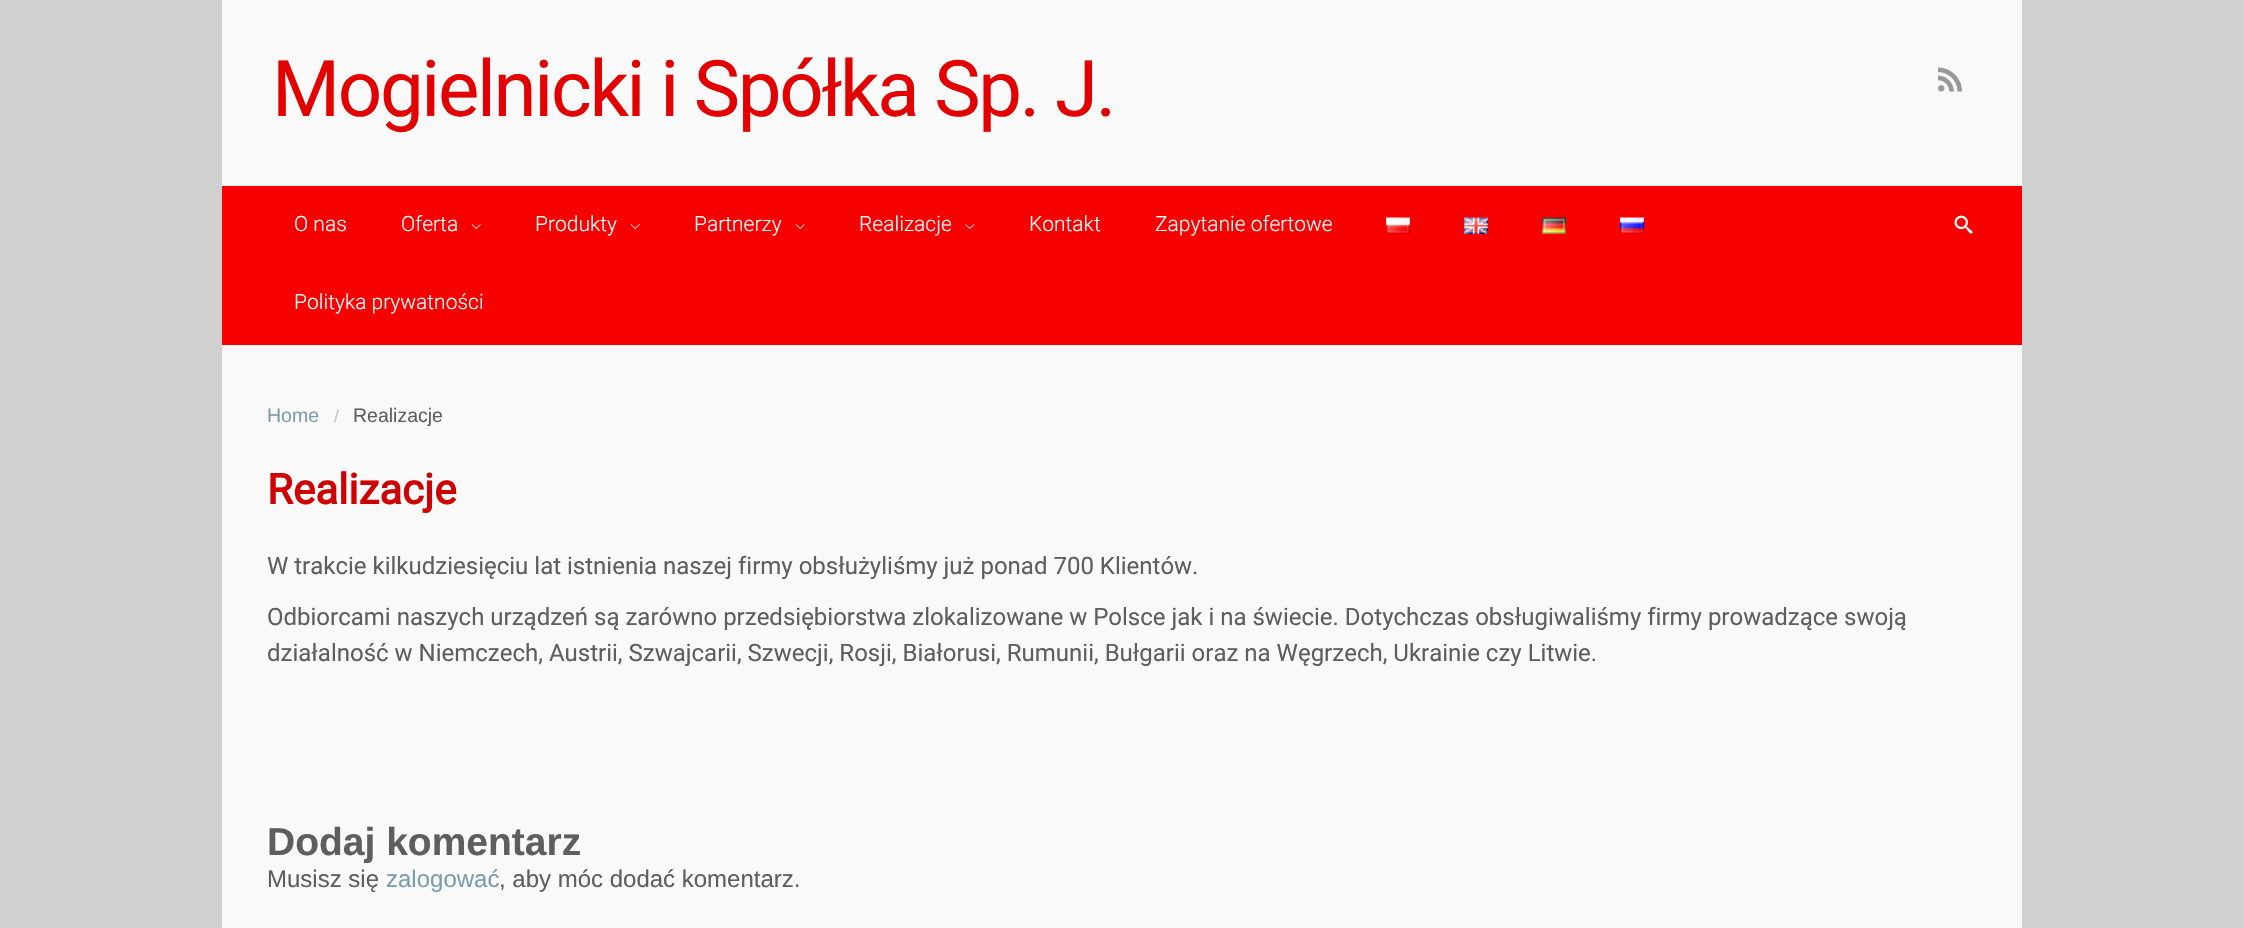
#include "include/core/SkBlurTypes.h"
#include "include/core/SkCanvas.h"
#include "include/core/SkData.h"
#include "include/core/SkFont.h"
#include "include/core/SkFontMgr.h"
#include "include/core/SkImage.h"
#include "include/core/SkMaskFilter.h"
#include "include/core/SkPaint.h"
#include "include/core/SkPathBuilder.h"
#include "include/core/SkTextBlob.h"
#include "include/effects/SkDashPathEffect.h"
#include "include/effects/SkGradientShader.h"
#include "include/utils/SkParsePath.h"

extern sk_sp<SkFontMgr> fontMgr;

void draw(SkCanvas* canvas) {
    SkPaint p;
    p.setAntiAlias(true);
    auto font = [&](const char* family, int weight, float size, bool italic = false) {
        SkFontStyle style(weight, SkFontStyle::kNormal_Width,
            italic ? SkFontStyle::kItalic_Slant : SkFontStyle::kUpright_Slant);
        SkFont result(fontMgr->matchFamilyStyle(family, style), size);
        result.setSubpixel(true);
        return result;
    };
    auto drawTracked = [&](const char* s, float x, float y, const SkFont& font, const SkPaint& ink, float letter, float word) {
        std::vector<SkGlyphID> glyphs(font.countText(s, strlen(s), SkTextEncoding::kUTF8));
        std::vector<float> xs(glyphs.size());
        font.textToGlyphs(s, strlen(s), SkTextEncoding::kUTF8, glyphs);
        font.getXPos(glyphs, xs, x);
        float extra = 0;
        for (size_t i = 0; i < glyphs.size(); i++) {
            xs[i] += extra;
            extra += letter + word * (glyphs[i] == font.unicharToGlyph(' '));
        }
        canvas->drawTextBlob(SkTextBlob::MakeFromPosHGlyphs(glyphs, xs, y, font), 0, 0, ink);
    };
    auto drawPhoto = [&](const char* path, float l, float t, float r, float b) {
        auto image = SkImages::DeferredFromEncodedData(SkData::MakeFromFileName(path));
        canvas->drawImageRect(image, SkRect::MakeLTRB(l, t, r, b), SkSamplingOptions());
    };
    canvas->clear(0xFFD1D1D1);
    p.setColor(0xFFF9F9F9);
    canvas->drawRect(SkRect::MakeLTRB(222, 0, 2022, 928), p);
    auto font1 = font("Roboto", 400, 78);
    p.setColor(0xFFE20000);
    drawTracked("Mogielnicki i Spółka Sp. J.", 272, 116, font1, p, -2.35f, 0);
    drawPhoto("media/1.png", 1938, 67, 1962, 92);
    p.setColor(0xFFF70000);
    canvas->drawRect(SkRect::MakeLTRB(222, 186, 2022, 345), p);
    auto font2 = font("Roboto", 300, 21);
    p.setColor(0xFFFFFFFF);
    canvas->drawString("O nas", 294, 231, font2, p);
    canvas->drawString("Oferta", 401, 231, font2, p);
    drawPhoto("media/2.png", 471, 224, 481, 229);
    canvas->drawString("Produkty", 535, 231, font2, p);
    drawPhoto("media/2.png", 630, 224, 640, 229);
    canvas->drawString("Partnerzy", 694, 231, font2, p);
    drawPhoto("media/2.png", 795, 224, 805, 229);
    canvas->drawString("Realizacje", 859, 231, font2, p);
    drawPhoto("media/3.png", 965, 224, 975, 229);
    canvas->drawString("Kontakt", 1029, 231, font2, p);
    canvas->drawString("Zapytanie ofertowe", 1155, 231, font2, p);
    drawPhoto("media/4.png", 1386, 217, 1410, 234);
    drawPhoto("media/5.png", 1464, 217, 1488, 234);
    drawPhoto("media/6.png", 1542, 217, 1566, 234);
    drawPhoto("media/7.png", 1620, 217, 1644, 234);
    canvas->drawString("Polityka prywatności", 294, 309, font2, p);
    drawPhoto("media/8.png", 1954, 215, 1973, 234);
    auto font3 = font("Liberation Sans", 400, 19.5f);
    p.setColor(0xFF7A9CAD);
    canvas->drawString("Home", 267, 422, font3, p);
    auto font4 = font("Liberation Sans", 400, 18);
    p.setColor(0xFFC7C7C7);
    canvas->drawString("/", 334, 422, font4, p);
    p.setColor(0xFF5E5E5E);
    canvas->drawString("Realizacje", 353, 422, font3, p);
    auto font5 = font("Roboto", 700, 42);
    p.setColor(0xFFCE0202);
    canvas->drawString("Realizacje", 267, 504, font5, p);
    auto font6 = font("Roboto", 400, 24);
    p.setColor(0xFF5E5E5E);
    {
        const struct { const char* s; float x, y; } items[] = {
            {"W trakcie kilkudziesięciu lat istnienia naszej firmy obsłużyliśmy już ponad 700 Klientów.", 267, 574},
            {"Odbiorcami naszych urządzeń są zarówno przedsiębiorstwa zlokalizowane w Polsce jak i na świecie. Dotychczas obsługiwaliśmy firmy prowadzące swoją", 267, 625},
            {"działalność w Niemczech, Austrii, Szwajcarii, Szwecji, Rosji, Białorusi, Rumunii, Bułgarii oraz na Węgrzech, Ukrainie czy Litwie.", 267, 661},
        };
        for (auto [s, x, y] : items) {
            canvas->drawString(s, x, y, font6, p);
        }
    }
    auto font7 = font("Liberation Sans", 700, 39);
    canvas->drawString("Dodaj komentarz", 267, 855, font7, p);
    auto font8 = font("Liberation Sans", 400, 24);
    canvas->drawString("Musisz się", 267, 887, font8, p);
    p.setColor(0xFF7A9CAD);
    canvas->drawString("zalogować", 386, 887, font8, p);
    p.setColor(0xFF5E5E5E);
    canvas->drawString(", aby móc dodać komentarz.", 499, 887, font8, p);
}
